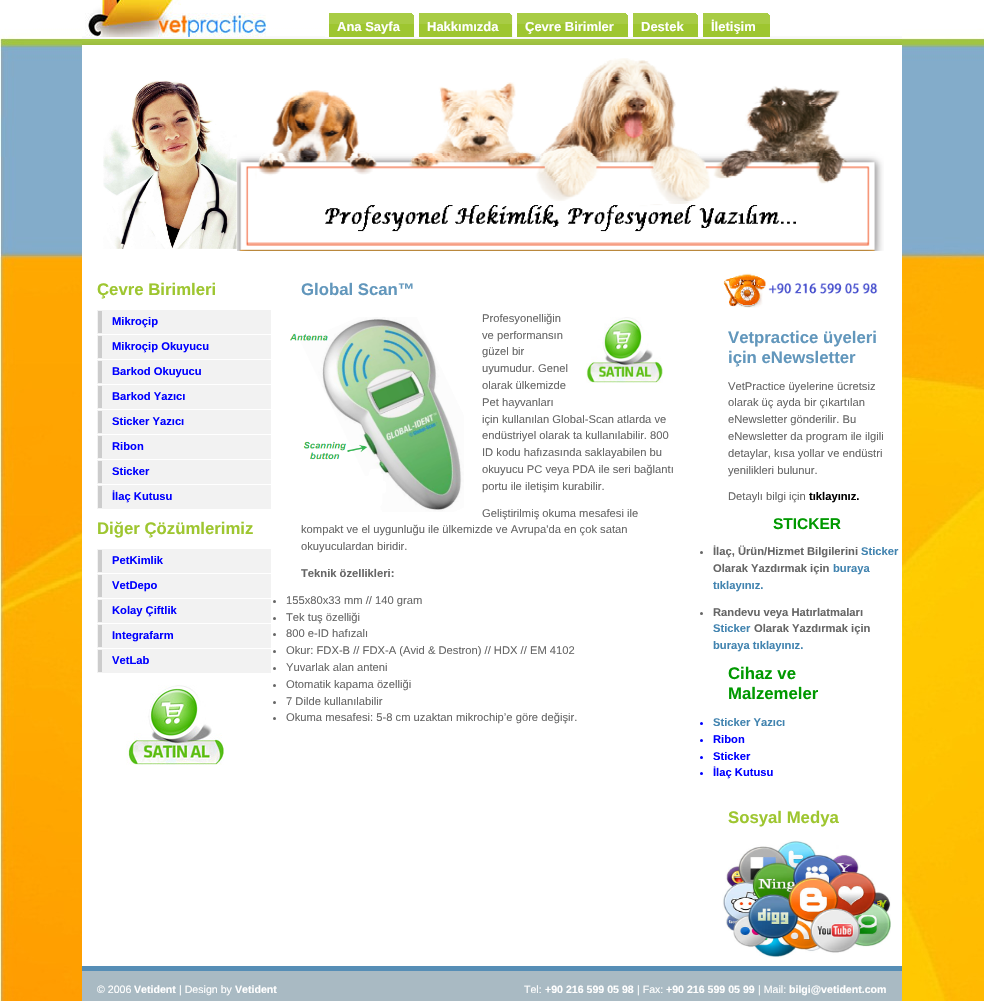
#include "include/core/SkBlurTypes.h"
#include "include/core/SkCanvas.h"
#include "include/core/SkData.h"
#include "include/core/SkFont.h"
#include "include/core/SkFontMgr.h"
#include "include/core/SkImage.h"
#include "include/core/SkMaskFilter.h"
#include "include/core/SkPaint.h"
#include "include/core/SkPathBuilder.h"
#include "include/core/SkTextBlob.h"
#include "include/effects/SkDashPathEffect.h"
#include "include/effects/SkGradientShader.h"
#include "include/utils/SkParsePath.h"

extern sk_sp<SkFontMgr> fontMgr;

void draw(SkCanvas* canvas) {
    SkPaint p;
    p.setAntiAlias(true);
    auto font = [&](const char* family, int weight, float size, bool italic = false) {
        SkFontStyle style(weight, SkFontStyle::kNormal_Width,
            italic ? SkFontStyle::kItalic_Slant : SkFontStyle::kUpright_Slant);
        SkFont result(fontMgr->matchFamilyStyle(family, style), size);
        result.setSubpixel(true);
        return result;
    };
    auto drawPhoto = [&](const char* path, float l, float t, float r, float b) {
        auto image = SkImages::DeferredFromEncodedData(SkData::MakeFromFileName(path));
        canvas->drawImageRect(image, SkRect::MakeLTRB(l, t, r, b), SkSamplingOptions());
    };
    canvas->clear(0xFFFFFFFF);
    drawPhoto("media/1.png", 0, 0, 984, 1001);
    p.setColor(0xFFFFFFFF);
    canvas->drawRect(SkRect::MakeLTRB(82, 29, 902, 966), p);
    drawPhoto("media/2.png", 82, 36, 902, 45);
    drawPhoto("media/3.png", 85, 0, 266, 37);
    canvas->drawRect(SkRect::MakeLTRB(325, 36, 329, 37), p);
    drawPhoto("media/4.png", 329, 13, 414, 37);
    auto font1 = font("Liberation Sans", 700, 13);
    canvas->drawString("Ana Sayfa", 337, 31, font1, p);
    canvas->drawRect(SkRect::MakeLTRB(415, 36, 419, 37), p);
    drawPhoto("media/5.png", 419, 13, 513, 37);
    canvas->drawString("Hakkımızda", 427, 31, font1, p);
    canvas->drawRect(SkRect::MakeLTRB(513, 36, 517, 37), p);
    drawPhoto("media/6.png", 517, 13, 628, 37);
    canvas->drawString("Çevre Birimler", 525, 31, font1, p);
    canvas->drawRect(SkRect::MakeLTRB(629, 36, 633, 37), p);
    drawPhoto("media/7.png", 633, 13, 698, 37);
    canvas->drawString("Destek", 641, 31, font1, p);
    canvas->drawRect(SkRect::MakeLTRB(699, 36, 703, 37), p);
    drawPhoto("media/8.png", 703, 13, 770, 37);
    canvas->drawString("İletişim", 711, 31, font1, p);
    drawPhoto("media/9.png", 103, 80, 237, 249);
    drawPhoto("media/10.png", 237, 58, 884, 251);
    auto font2 = font("Liberation Sans", 700, 16.75f);
    p.setColor(0xFF9EC630);
    canvas->drawString("Çevre Birimleri", 97, 295, font2, p);
    p.setStyle(SkPaint::kStroke_Style);
    p.setStrokeWidth(1);
    p.setColor(0xFFF2F2F2);
    canvas->drawRect(SkRect::MakeLTRB(97.5f, 310.5f, 270.5f, 333.5f), p);
    p.setStyle(SkPaint::kFill_Style);
    canvas->drawRect(SkRect::MakeLTRB(102, 311, 270, 333), p);
    p.setColor(0xFFCCCCCC);
    canvas->drawRect(SkRect::MakeLTRB(98, 311, 102, 333), p);
    auto font3 = font("Liberation Sans", 700, 11.2f);
    p.setColor(0xFF0000FF);
    canvas->drawString("Mikroçip", 112, 325, font3, p);
    p.setStyle(SkPaint::kStroke_Style);
    p.setColor(0xFFF2F2F2);
    canvas->drawRect(SkRect::MakeLTRB(97.5f, 335.5f, 270.5f, 358.5f), p);
    p.setStyle(SkPaint::kFill_Style);
    canvas->drawRect(SkRect::MakeLTRB(102, 336, 270, 358), p);
    p.setColor(0xFFCCCCCC);
    canvas->drawRect(SkRect::MakeLTRB(98, 336, 102, 358), p);
    p.setColor(0xFF0000FF);
    canvas->drawString("Mikroçip Okuyucu", 112, 350, font3, p);
    p.setStyle(SkPaint::kStroke_Style);
    p.setColor(0xFFF2F2F2);
    canvas->drawRect(SkRect::MakeLTRB(97.5f, 360.5f, 270.5f, 383.5f), p);
    p.setStyle(SkPaint::kFill_Style);
    canvas->drawRect(SkRect::MakeLTRB(102, 361, 270, 383), p);
    p.setColor(0xFFCCCCCC);
    canvas->drawRect(SkRect::MakeLTRB(98, 361, 102, 383), p);
    p.setColor(0xFF0000FF);
    canvas->drawString("Barkod Okuyucu", 112, 375, font3, p);
    p.setStyle(SkPaint::kStroke_Style);
    p.setColor(0xFFF2F2F2);
    canvas->drawRect(SkRect::MakeLTRB(97.5f, 385.5f, 270.5f, 408.5f), p);
    p.setStyle(SkPaint::kFill_Style);
    canvas->drawRect(SkRect::MakeLTRB(102, 386, 270, 408), p);
    p.setColor(0xFFCCCCCC);
    canvas->drawRect(SkRect::MakeLTRB(98, 386, 102, 408), p);
    p.setColor(0xFF0000FF);
    canvas->drawString("Barkod Yazıcı", 112, 400, font3, p);
    p.setStyle(SkPaint::kStroke_Style);
    p.setColor(0xFFF2F2F2);
    canvas->drawRect(SkRect::MakeLTRB(97.5f, 410.5f, 270.5f, 433.5f), p);
    p.setStyle(SkPaint::kFill_Style);
    canvas->drawRect(SkRect::MakeLTRB(102, 411, 270, 433), p);
    p.setColor(0xFFCCCCCC);
    canvas->drawRect(SkRect::MakeLTRB(98, 411, 102, 433), p);
    p.setColor(0xFF0000FF);
    canvas->drawString("Sticker Yazıcı", 112, 425, font3, p);
    p.setStyle(SkPaint::kStroke_Style);
    p.setColor(0xFFF2F2F2);
    canvas->drawRect(SkRect::MakeLTRB(97.5f, 435.5f, 270.5f, 458.5f), p);
    p.setStyle(SkPaint::kFill_Style);
    canvas->drawRect(SkRect::MakeLTRB(102, 436, 270, 458), p);
    p.setColor(0xFFCCCCCC);
    canvas->drawRect(SkRect::MakeLTRB(98, 436, 102, 458), p);
    p.setColor(0xFF0000FF);
    canvas->drawString("Ribon", 112, 450, font3, p);
    p.setStyle(SkPaint::kStroke_Style);
    p.setColor(0xFFF2F2F2);
    canvas->drawRect(SkRect::MakeLTRB(97.5f, 460.5f, 270.5f, 483.5f), p);
    p.setStyle(SkPaint::kFill_Style);
    canvas->drawRect(SkRect::MakeLTRB(102, 461, 270, 483), p);
    p.setColor(0xFFCCCCCC);
    canvas->drawRect(SkRect::MakeLTRB(98, 461, 102, 483), p);
    p.setColor(0xFF0000FF);
    canvas->drawString("Sticker", 112, 475, font3, p);
    p.setStyle(SkPaint::kStroke_Style);
    p.setColor(0xFFF2F2F2);
    canvas->drawRect(SkRect::MakeLTRB(97.5f, 485.5f, 270.5f, 508.5f), p);
    p.setStyle(SkPaint::kFill_Style);
    canvas->drawRect(SkRect::MakeLTRB(102, 486, 270, 508), p);
    p.setColor(0xFFCCCCCC);
    canvas->drawRect(SkRect::MakeLTRB(98, 486, 102, 508), p);
    p.setColor(0xFF0000FF);
    canvas->drawString("İlaç Kutusu", 112, 500, font3, p);
    p.setColor(0xFF9EC630);
    canvas->drawString("Diğer Çözümlerimiz", 97, 534, font2, p);
    p.setStyle(SkPaint::kStroke_Style);
    p.setColor(0xFFF2F2F2);
    canvas->drawRect(SkRect::MakeLTRB(97.5f, 549.5f, 270.5f, 572.5f), p);
    p.setStyle(SkPaint::kFill_Style);
    canvas->drawRect(SkRect::MakeLTRB(102, 550, 270, 572), p);
    p.setColor(0xFFCCCCCC);
    canvas->drawRect(SkRect::MakeLTRB(98, 550, 102, 572), p);
    p.setColor(0xFF0000FF);
    canvas->drawString("PetKimlik", 112, 564, font3, p);
    p.setStyle(SkPaint::kStroke_Style);
    p.setColor(0xFFF2F2F2);
    canvas->drawRect(SkRect::MakeLTRB(97.5f, 574.5f, 270.5f, 597.5f), p);
    p.setStyle(SkPaint::kFill_Style);
    canvas->drawRect(SkRect::MakeLTRB(102, 575, 270, 597), p);
    p.setColor(0xFFCCCCCC);
    canvas->drawRect(SkRect::MakeLTRB(98, 575, 102, 597), p);
    p.setColor(0xFF0000FF);
    canvas->drawString("VetDepo", 112, 589, font3, p);
    p.setStyle(SkPaint::kStroke_Style);
    p.setColor(0xFFF2F2F2);
    canvas->drawRect(SkRect::MakeLTRB(97.5f, 599.5f, 270.5f, 622.5f), p);
    p.setStyle(SkPaint::kFill_Style);
    canvas->drawRect(SkRect::MakeLTRB(102, 600, 270, 622), p);
    p.setColor(0xFFCCCCCC);
    canvas->drawRect(SkRect::MakeLTRB(98, 600, 102, 622), p);
    p.setColor(0xFF0000FF);
    canvas->drawString("Kolay Çiftlik", 112, 614, font3, p);
    p.setStyle(SkPaint::kStroke_Style);
    p.setColor(0xFFF2F2F2);
    canvas->drawRect(SkRect::MakeLTRB(97.5f, 624.5f, 270.5f, 647.5f), p);
    p.setStyle(SkPaint::kFill_Style);
    canvas->drawRect(SkRect::MakeLTRB(102, 625, 270, 647), p);
    p.setColor(0xFFCCCCCC);
    canvas->drawRect(SkRect::MakeLTRB(98, 625, 102, 647), p);
    p.setColor(0xFF0000FF);
    canvas->drawString("Integrafarm", 112, 639, font3, p);
    p.setStyle(SkPaint::kStroke_Style);
    p.setColor(0xFFF2F2F2);
    canvas->drawRect(SkRect::MakeLTRB(97.5f, 649.5f, 270.5f, 672.5f), p);
    p.setStyle(SkPaint::kFill_Style);
    canvas->drawRect(SkRect::MakeLTRB(102, 650, 270, 672), p);
    p.setColor(0xFFCCCCCC);
    canvas->drawRect(SkRect::MakeLTRB(98, 650, 102, 672), p);
    p.setColor(0xFF0000FF);
    canvas->drawString("VetLab", 112, 664, font3, p);
    drawPhoto("media/11.png", 126, 685, 224, 765);
    p.setColor(0xFF6297BC);
    canvas->drawString("Global Scan™", 301, 295, font2, p);
    drawPhoto("media/12.png", 290, 317, 464, 512);
    auto font4 = font("Liberation Sans", 400, 11.2f);
    p.setColor(0xFF666666);
    {
        const struct { const char* s; float x, y; } items[] = {
            {"Profesyonelliğin", 482, 322},
            {"ve performansın", 482, 339},
            {"güzel bir", 482, 355},
            {"uyumudur. Genel", 482, 372},
            {"olarak ülkemizde", 482, 389},
            {"Pet hayvanları", 482, 406},
            {"için kullanılan Global-Scan atlarda ve", 482, 423},
            {"endüstriyel olarak ta kullanılabilir. 800", 482, 439},
            {"ID kodu hafızasında saklayabilen bu", 482, 456},
            {"okuyucu PC veya PDA ile seri bağlantı", 482, 473},
            {"portu ile iletişim kurabilir.", 482, 490},
        };
        for (auto [s, x, y] : items) {
            canvas->drawString(s, x, y, font4, p);
        }
    }
    drawPhoto("media/13.png", 586, 317, 663, 383);
    {
        const struct { const char* s; float x, y; } items[] = {
            {"Geliştirilmiş okuma mesafesi ile", 482, 517},
            {"kompakt ve el uygunluğu ile ülkemizde ve Avrupa'da en çok satan", 301, 533},
            {"okuyuculardan biridir.", 301, 550},
        };
        for (auto [s, x, y] : items) {
            canvas->drawString(s, x, y, font4, p);
        }
    }
    canvas->drawString("Teknik özellikleri:", 301, 577, font3, p);
    canvas->drawCircle(274.5f, 601.5f, 1.5f, p);
    canvas->drawString("155x80x33 mm // 140 gram", 286, 604, font4, p);
    canvas->drawCircle(274.5f, 618.5f, 1.5f, p);
    canvas->drawString("Tek tuş özelliği", 286, 621, font4, p);
    canvas->drawCircle(274.5f, 634.5f, 1.5f, p);
    canvas->drawString("800 e-ID hafızalı", 286, 637, font4, p);
    canvas->drawCircle(274.5f, 651.5f, 1.5f, p);
    canvas->drawString("Okur: FDX-B // FDX-A (Avid & Destron) // HDX // EM 4102", 286, 654, font4, p);
    canvas->drawCircle(274.5f, 668.5f, 1.5f, p);
    canvas->drawString("Yuvarlak alan anteni", 286, 671, font4, p);
    canvas->drawCircle(274.5f, 685.5f, 1.5f, p);
    canvas->drawString("Otomatik kapama özelliği", 286, 688, font4, p);
    canvas->drawCircle(274.5f, 702.5f, 1.5f, p);
    canvas->drawString("7 Dilde kullanılabilir", 286, 705, font4, p);
    canvas->drawCircle(274.5f, 718.5f, 1.5f, p);
    canvas->drawString("Okuma mesafesi: 5-8 cm uzaktan mikrochip’e göre değişir.", 286, 721, font4, p);
    drawPhoto("media/14.png", 723, 273, 878, 308);
    p.setColor(0xFF6297BC);
    canvas->drawString("Vetpractice üyeleri", 728, 343, font2, p);
    canvas->drawString("için eNewsletter", 728, 363, font2, p);
    p.setColor(0xFF666666);
    {
        const struct { const char* s; float x, y; } items[] = {
            {"VetPractice üyelerine ücretsiz", 728, 390},
            {"olarak üç ayda bir çıkartılan", 728, 406},
            {"eNewsletter gönderilir. Bu", 728, 423},
            {"eNewsletter da program ile ilgili", 728, 440},
            {"detaylar, kısa yollar ve endüstri", 728, 457},
            {"yenilikleri bulunur.", 728, 474},
            {"Detaylı bilgi için", 728, 500},
        };
        for (auto [s, x, y] : items) {
            canvas->drawString(s, x, y, font4, p);
        }
    }
    p.setColor(0xFF000000);
    canvas->drawString("tıklayınız.", 809, 500, font3, p);
    auto font5 = font("Liberation Sans", 700, 15.5f);
    p.setColor(0xFF009900);
    canvas->drawString("STICKER", 773, 529, font5, p);
    p.setColor(0xFF666666);
    canvas->drawCircle(701.5f, 552.5f, 1.5f, p);
    canvas->drawString("İlaç, Ürün/Hizmet Bilgilerini", 713, 555, font3, p);
    p.setColor(0xFF4284B0);
    canvas->drawString("Sticker", 861, 555, font3, p);
    p.setColor(0xFF666666);
    canvas->drawString("Olarak Yazdırmak için", 713, 572, font3, p);
    p.setColor(0xFF4284B0);
    canvas->drawString("buraya", 833, 572, font3, p);
    canvas->drawString("tıklayınız.", 713, 589, font3, p);
    p.setColor(0xFF666666);
    canvas->drawCircle(701.5f, 613.5f, 1.5f, p);
    canvas->drawString("Randevu veya Hatırlatmaları", 713, 616, font3, p);
    p.setColor(0xFF4284B0);
    canvas->drawString("Sticker", 713, 632, font3, p);
    p.setColor(0xFF666666);
    canvas->drawString("Olarak Yazdırmak için", 754, 632, font3, p);
    p.setColor(0xFF4284B0);
    canvas->drawString("buraya tıklayınız.", 713, 649, font3, p);
    p.setColor(0xFF009900);
    canvas->drawString("Cihaz ve", 728, 679, font2, p);
    canvas->drawString("Malzemeler", 728, 699, font2, p);
    p.setColor(0xFF0000FF);
    canvas->drawCircle(701.5f, 723.5f, 1.5f, p);
    p.setColor(0xFF4284B0);
    canvas->drawString("Sticker Yazıcı", 713, 726, font3, p);
    p.setColor(0xFF0000FF);
    canvas->drawCircle(701.5f, 740.5f, 1.5f, p);
    canvas->drawString("Ribon", 713, 743, font3, p);
    canvas->drawCircle(701.5f, 757.5f, 1.5f, p);
    canvas->drawString("Sticker", 713, 760, font3, p);
    canvas->drawCircle(701.5f, 773.5f, 1.5f, p);
    canvas->drawString("İlaç Kutusu", 713, 776, font3, p);
    p.setColor(0xFF9EC630);
    canvas->drawString("Sosyal Medya", 728, 823, font2, p);
    drawPhoto("media/15.png", 722, 840, 891, 958);
    p.setColor(0xFFA9BAC3);
    canvas->drawRect(SkRect::MakeLTRB(82, 971, 902, 1001), p);
    p.setColor(0xFF568EB6);
    canvas->drawRect(SkRect::MakeLTRB(82, 966, 902, 971), p);
    auto font6 = font("Liberation Sans", 400, 10.6f);
    p.setColor(0xFFFFFFFF);
    canvas->drawString("© 2006", 97, 993, font6, p);
    auto font7 = font("Liberation Sans", 700, 10.6f);
    canvas->drawString("Vetident", 134, 993, font7, p);
    canvas->drawString("| Design by", 179, 993, font6, p);
    canvas->drawString("Vetident", 235, 993, font7, p);
    canvas->drawString("Tel:", 524, 993, font6, p);
    canvas->drawString("+90 216 599 05 98", 545, 993, font7, p);
    canvas->drawString("| Fax:", 637, 993, font6, p);
    canvas->drawString("+90 216 599 05 99", 666, 993, font7, p);
    canvas->drawString("| Mail:", 758, 993, font6, p);
    canvas->drawString("bilgi@vetident.com", 789, 993, font7, p);
}
